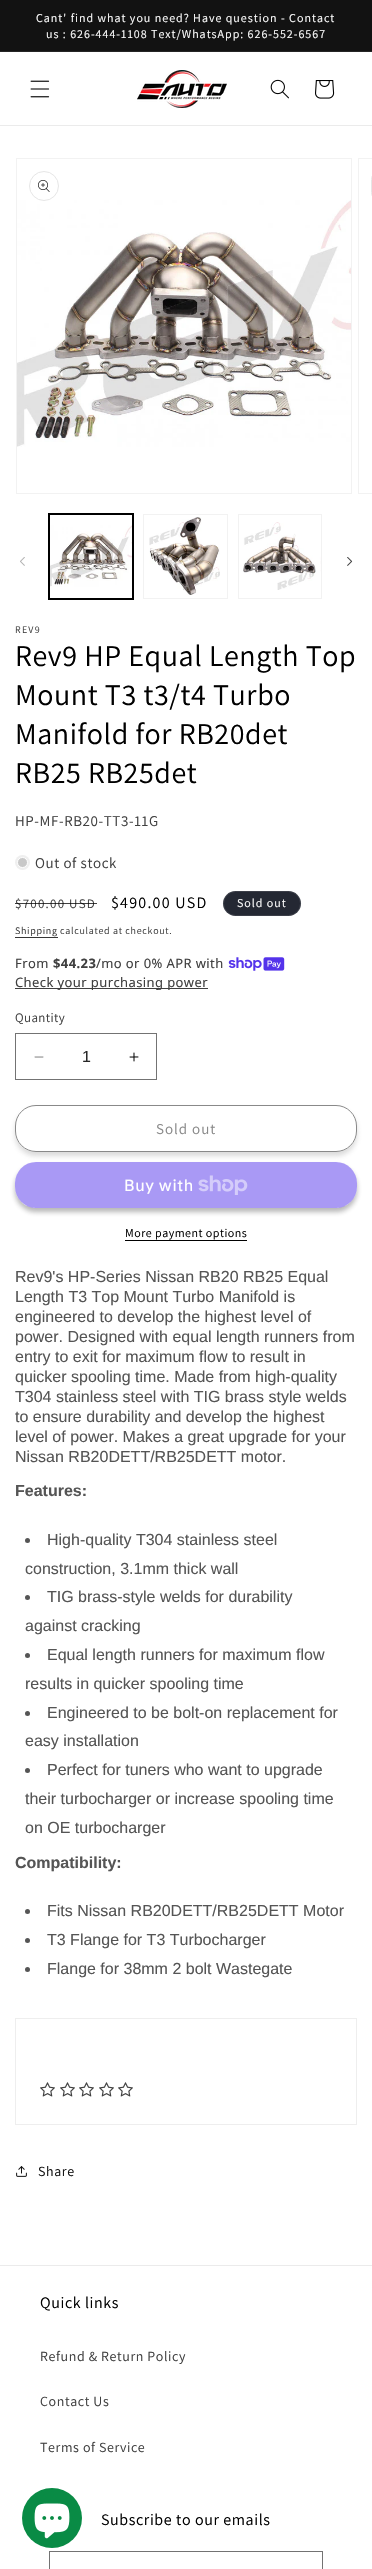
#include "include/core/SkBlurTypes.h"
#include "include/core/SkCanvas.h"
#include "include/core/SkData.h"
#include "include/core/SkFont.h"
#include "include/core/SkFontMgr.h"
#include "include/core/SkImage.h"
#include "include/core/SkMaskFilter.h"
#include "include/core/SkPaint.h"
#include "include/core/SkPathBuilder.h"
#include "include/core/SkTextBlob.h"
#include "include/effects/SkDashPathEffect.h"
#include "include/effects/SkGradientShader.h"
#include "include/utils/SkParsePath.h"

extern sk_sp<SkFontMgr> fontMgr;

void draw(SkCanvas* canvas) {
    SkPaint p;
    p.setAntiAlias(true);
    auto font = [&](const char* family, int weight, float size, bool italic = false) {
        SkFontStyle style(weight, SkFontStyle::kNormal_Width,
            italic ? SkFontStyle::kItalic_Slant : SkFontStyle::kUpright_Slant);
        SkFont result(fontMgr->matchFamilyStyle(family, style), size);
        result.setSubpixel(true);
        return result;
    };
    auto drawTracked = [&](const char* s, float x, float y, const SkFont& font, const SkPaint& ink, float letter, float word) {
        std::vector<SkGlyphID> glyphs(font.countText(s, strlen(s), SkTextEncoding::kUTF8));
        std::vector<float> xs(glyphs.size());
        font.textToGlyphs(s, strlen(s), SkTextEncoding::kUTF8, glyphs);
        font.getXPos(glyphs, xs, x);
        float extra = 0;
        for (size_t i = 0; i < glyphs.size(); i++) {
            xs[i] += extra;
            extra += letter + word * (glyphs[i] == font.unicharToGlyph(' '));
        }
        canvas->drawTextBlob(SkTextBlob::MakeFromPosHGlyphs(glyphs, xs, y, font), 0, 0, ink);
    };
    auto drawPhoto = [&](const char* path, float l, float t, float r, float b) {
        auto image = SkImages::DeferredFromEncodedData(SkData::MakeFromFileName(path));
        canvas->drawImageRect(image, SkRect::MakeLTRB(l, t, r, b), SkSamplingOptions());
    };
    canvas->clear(0xFFFFFFFF);
    p.setColor(0xFF121212);
    canvas->drawRect(SkRect::MakeLTRB(0, 0, 372, 51), p);
    p.setColor(0xFF252525);
    canvas->drawRect(SkRect::MakeLTRB(0, 51, 372, 52), p);
    auto font1 = font("Assistant", 400, 12);
    p.setColor(0xFFFFFFFF);
    drawTracked("Cant' find what you need? Have question - Contact", 36, 22, font1, p, 1, 0);
    drawTracked("us : 626-444-1108 Text/WhatsApp: 626-552-6567", 46, 38, font1, p, 1, 0);
    p.setColor(0xFFEBEBEB);
    canvas->drawRect(SkRect::MakeLTRB(0, 125, 372, 126), p);
    drawPhoto("media/1.png", 30, 80, 50, 98);
    drawPhoto("media/2.png", 137, 70, 227, 108);
    drawPhoto("media/3.png", 270, 79, 289, 99);
    drawPhoto("media/4.png", 315, 80, 335, 99);
    p.setStyle(SkPaint::kStroke_Style);
    p.setStrokeWidth(1);
    p.setColor(0xFFF2F2F2);
    canvas->drawRect(SkRect::MakeLTRB(16.5f, 158.5f, 351.5f, 493.5f), p);
    drawPhoto("media/6.png", 17, 200, 351, 447);
    p.setColor(0xFFE6E6E6);
    canvas->drawCircle(44, 186, 14.5f, p);
    drawPhoto("media/5.png", 38, 180, 50, 192);
    p.setColor(0xFFF2F2F2);
    canvas->drawRect(SkRect::MakeLTRB(358.5f, 158.5f, 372.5f, 493.5f), p);
    p.setColor(0xFFE6E6E6);
    canvas->drawRoundRect(SkRect::MakeLTRB(371.5f, 171.5f, 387.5f, 200.5f), 14.5f, 14.5f, p);
    drawPhoto("media/7.png", 20, 557, 25, 566);
    p.setColor(0xFF000000);
    canvas->drawRect(SkRect::MakeLTRB(48.5f, 513.5f, 133.5f, 599.5f), p);
    canvas->drawRect(SkRect::MakeLTRB(49.5f, 514.5f, 132.5f, 598.5f), p);
    drawPhoto("media/8.png", 50, 525, 132, 587);
    p.setColor(0xFFF2F2F2);
    canvas->drawRect(SkRect::MakeLTRB(143.5f, 514.5f, 227.5f, 598.5f), p);
    drawPhoto("media/9.png", 149, 517, 220, 595);
    canvas->drawRect(SkRect::MakeLTRB(238.5f, 514.5f, 321.5f, 598.5f), p);
    drawPhoto("media/10.png", 243, 522, 321, 590);
    drawPhoto("media/11.png", 347, 557, 353, 566);
    auto font2 = font("Assistant", 400, 10);
    p.setStyle(SkPaint::kFill_Style);
    p.setColor(0xFF404040);
    drawTracked("REV9", 15, 633, font2, p, 1.25f, 0);
    auto font3 = font("Assistant", 400, 30);
    p.setColor(0xFF000000);
    {
        const struct { const char* s; float x, y; } items[] = {
            {"Rev9 HP Equal Length Top", 15, 666},
            {"Mount T3 t3/t4 Turbo", 15, 705},
            {"Manifold for RB20det", 15, 744},
            {"RB25 RB25det", 15, 783},
        };
        for (auto [s, x, y] : items) {
            drawTracked(s, x, y, font3, p, 0.6f, 0);
        }
    }
    auto font4 = font("Assistant", 400, 15);
    p.setColor(0xFF404040);
    drawTracked("HP-MF-RB20-TT3-11G", 15, 826, font4, p, 0.6f, 0);
    p.setColor(0xFFEFEFEF);
    canvas->drawCircle(22.5f, 862.5f, 7.5f, p);
    p.setColor(0xFFC8C8C8);
    canvas->drawCircle(22.5f, 862.5f, 5, p);
    p.setStyle(SkPaint::kStroke_Style);
    p.setColor(0xFFFFFFFF);
    canvas->drawCircle(22.5f, 862.5f, 5, p);
    p.setStyle(SkPaint::kFill_Style);
    p.setColor(0xFF404040);
    drawTracked("Out of stock", 35, 868, font4, p, 0.6f, 0);
    auto font5 = font("Assistant", 400, 13);
    drawTracked("$700.00 USD", 15, 908, font5, p, 1.25f, 0);
    p.setColor(0xBF000000);
    canvas->drawRect(SkRect::MakeLTRB(15, 903, 97, 904), p);
    auto font6 = font("Assistant", 400, 16);
    p.setColor(0xFF000000);
    drawTracked("$490.00 USD", 111, 908, font6, p, 1.25f, 0);
    p.setColor(0xFF242833);
    canvas->drawRoundRect(SkRect::MakeLTRB(223, 891, 301, 916), 12.5f, 12.5f, p);
    p.setStyle(SkPaint::kStroke_Style);
    p.setColor(0x1AFFFFFF);
    canvas->drawRoundRect(SkRect::MakeLTRB(223.5f, 891.5f, 300.5f, 915.5f), 12, 12, p);
    p.setStyle(SkPaint::kFill_Style);
    p.setColor(0xFFFFFFFF);
    drawTracked("Sold out", 237, 907, font1, p, 1, 0);
    p.setColor(0xFF363636);
    drawTracked("Shipping", 15, 934, font2, p, 0.7f, 0);
    canvas->drawRect(SkRect::MakeLTRB(15, 937, 58, 938), p);
    p.setColor(0xFF404040);
    drawTracked("calculated at checkout.", 60, 934, font2, p, 0.7f, 0);
    auto font7 = font("Noto Sans", 400, 13);
    drawTracked("From", 15, 968, font7, p, 0.4f, 0);
    auto font8 = font("Noto Sans", 700, 13);
    drawTracked("$44.23", 53, 968, font8, p, 0.4f, 0);
    drawTracked("/mo or 0% APR with", 96, 968, font7, p, 0.4f, 0);
    drawPhoto("media/12.png", 228, 957, 285, 971);
    canvas->drawRect(SkRect::MakeLTRB(15, 988, 208, 989), p);
    drawTracked("Check your purchasing power", 15, 987, font7, p, 0.4f, 0);
    drawTracked("Quantity", 15, 1022, font5, p, 0.4f, 0);
    drawPhoto("media/13.png", 34, 1056, 44, 1058);
    drawPhoto("media/14.png", 129, 1052, 139, 1062);
    p.setStyle(SkPaint::kStroke_Style);
    p.setColor(0xFF737373);
    canvas->drawRect(SkRect::MakeLTRB(15.5f, 1033.5f, 156.5f, 1079.5f), p);
    auto font9 = font("Liberation Sans", 400, 16);
    p.setStyle(SkPaint::kFill_Style);
    p.setColor(0xFF262626);
    canvas->drawString("1", 82, 1062, font9, p);
    canvas->save();
    canvas->clipPath(SkPathBuilder(SkPathFillType::kEvenOdd).moveTo(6, 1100).lineTo(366, 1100).lineTo(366, 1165).lineTo(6, 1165).close().moveTo(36, 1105).lineTo(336, 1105).cubicTo(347.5f, 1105, 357, 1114.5f, 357, 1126).lineTo(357, 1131).cubicTo(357, 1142.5f, 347.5f, 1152, 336, 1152).lineTo(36, 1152).cubicTo(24.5f, 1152, 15, 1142.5f, 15, 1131).lineTo(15, 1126).cubicTo(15, 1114.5f, 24.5f, 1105, 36, 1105).close().detach(), true);
    p.setColor(0x4D888888);
    p.setMaskFilter(SkMaskFilter::MakeBlur(kNormal_SkBlurStyle, 2.5f));
    canvas->drawRoundRect(SkRect::MakeLTRB(15, 1109, 357, 1156), 21, 21, p);
    p.setMaskFilter(nullptr);
    canvas->restore();
    p.setStyle(SkPaint::kStroke_Style);
    p.setColor(0xFFFFFFFF);
    canvas->drawRoundRect(SkRect::MakeLTRB(15.5f, 1105.5f, 356.5f, 1151.5f), 20.5f, 20.5f, p);
    p.setColor(0xFF898989);
    canvas->drawRoundRect(SkRect::MakeLTRB(15.5f, 1105.5f, 356.5f, 1151.5f), 20.5f, 20.5f, p);
    p.setStyle(SkPaint::kFill_Style);
    drawTracked("Sold out", 156, 1134, font4, p, 1, 0);
    canvas->save();
    canvas->clipPath(SkPathBuilder(SkPathFillType::kEvenOdd).moveTo(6, 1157).lineTo(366, 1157).lineTo(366, 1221).lineTo(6, 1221).close().moveTo(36, 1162).lineTo(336, 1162).cubicTo(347.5f, 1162, 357, 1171.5f, 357, 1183).lineTo(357, 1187).cubicTo(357, 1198.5f, 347.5f, 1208, 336, 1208).lineTo(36, 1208).cubicTo(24.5f, 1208, 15, 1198.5f, 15, 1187).lineTo(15, 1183).cubicTo(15, 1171.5f, 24.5f, 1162, 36, 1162).close().detach(), true);
    p.setColor(0x4D121212);
    p.setMaskFilter(SkMaskFilter::MakeBlur(kNormal_SkBlurStyle, 2.5f));
    canvas->drawRoundRect(SkRect::MakeLTRB(15, 1166, 357, 1212), 21, 21, p);
    p.setMaskFilter(nullptr);
    canvas->restore();
    p.setColor(0x805433EB);
    canvas->drawRoundRect(SkRect::MakeLTRB(15, 1162, 357, 1208), 21, 21, p);
    auto font10 = font("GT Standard", 400, 16);
    p.setColor(0xFFFFFFFF);
    drawTracked("Buy with", 124, 1191, font10, p, 0.6f, 0);
    drawPhoto("media/15.png", 198, 1175, 248, 1195);
    p.setColor(0xFF000000);
    drawTracked("More payment options", 125, 1237, font1, p, 0.5f, 0);
    canvas->drawRect(SkRect::MakeLTRB(125, 1240, 247, 1241), p);
    p.setColor(0xFF555555);
    {
        const struct { const char* s; float x, y; } items[] = {
            {"Rev9's HP-Series Nissan RB20 RB25 Equal", 15, 1282},
            {"Length T3 Top Mount Turbo Manifold is", 15, 1302},
            {"engineered to develop the highest level of", 15, 1322},
            {"power. Designed with equal length runners from", 15, 1342},
            {"entry to exit for maximum flow to result in", 15, 1362},
            {"quicker spooling time. Made from high-quality", 15, 1382},
            {"T304 stainless steel with TIG brass style welds", 15, 1402},
            {"to ensure durability and develop the highest", 15, 1422},
            {"level of power. Makes a great upgrade for your", 15, 1442},
            {"Nissan RB20DETT/RB25DETT motor.", 15, 1462},
        };
        for (auto [s, x, y] : items) {
            canvas->drawString(s, x, y, font9, p);
        }
    }
    auto font11 = font("Liberation Sans", 700, 16);
    canvas->drawString("Features:", 15, 1496, font11, p);
    canvas->drawCircle(27.5f, 1540.5f, 2.5f, p);
    canvas->drawString("High-quality T304 stainless steel", 47, 1545, font9, p);
    canvas->drawString("construction, 3.1mm thick wall", 25, 1574, font9, p);
    canvas->drawCircle(27.5f, 1597.5f, 2.5f, p);
    canvas->drawString("TIG brass-style welds for durability", 47, 1602, font9, p);
    canvas->drawString("against cracking", 25, 1631, font9, p);
    canvas->drawCircle(27.5f, 1655.5f, 2.5f, p);
    canvas->drawString("Equal length runners for maximum flow", 47, 1660, font9, p);
    canvas->drawString("results in quicker spooling time", 25, 1689, font9, p);
    canvas->drawCircle(27.5f, 1713.5f, 2.5f, p);
    canvas->drawString("Engineered to be bolt-on replacement for", 47, 1718, font9, p);
    canvas->drawString("easy installation", 25, 1746, font9, p);
    canvas->drawCircle(27.5f, 1770.5f, 2.5f, p);
    {
        const struct { const char* s; float x, y; } items[] = {
            {"Perfect for tuners who want to upgrade", 47, 1775},
            {"their turbocharger or increase spooling time", 25, 1804},
            {"on OE turbocharger", 25, 1833},
        };
        for (auto [s, x, y] : items) {
            canvas->drawString(s, x, y, font9, p);
        }
    }
    canvas->drawString("Compatibility:", 15, 1868, font11, p);
    canvas->drawCircle(27.5f, 1911.5f, 2.5f, p);
    canvas->drawString("Fits Nissan RB20DETT/RB25DETT Motor", 47, 1916, font9, p);
    canvas->drawCircle(27.5f, 1940.5f, 2.5f, p);
    canvas->drawString("T3 Flange for T3 Turbocharger", 47, 1945, font9, p);
    canvas->drawCircle(27.5f, 1969.5f, 2.5f, p);
    canvas->drawString("Flange for 38mm 2 bolt Wastegate", 47, 1974, font9, p);
    p.setStyle(SkPaint::kStroke_Style);
    p.setColor(0xFFEEEEEE);
    canvas->drawRect(SkRect::MakeLTRB(15.5f, 2018.5f, 356.5f, 2124.5f), p);
    drawPhoto("media/16.png", 40, 2082, 55, 2097);
    drawPhoto("media/16.png", 60, 2082, 75, 2097);
    drawPhoto("media/16.png", 79, 2082, 94, 2097);
    drawPhoto("media/16.png", 99, 2082, 114, 2097);
    drawPhoto("media/16.png", 118, 2082, 133, 2097);
    drawPhoto("media/17.png", 16, 2166, 27, 2177);
    auto font12 = font("Assistant", 400, 14);
    p.setStyle(SkPaint::kFill_Style);
    p.setColor(0xFF121212);
    drawTracked("Share", 38, 2176, font12, p, 0.6f, 0);
    p.setColor(0xFFEBEBEB);
    canvas->drawRect(SkRect::MakeLTRB(0, 2265, 372, 2266), p);
    p.setColor(0xFF000000);
    drawTracked("Quick links", 40, 2308, font6, p, 0.6f, 0);
    p.setColor(0xFF404040);
    {
        const struct { const char* s; float x, y; } items[] = {
            {"Refund & Return Policy", 40, 2361},
            {"Contact Us", 40, 2406},
            {"Terms of Service", 40, 2452},
        };
        for (auto [s, x, y] : items) {
            drawTracked(s, x, y, font12, p, 0.6f, 0);
        }
    }
    p.setColor(0xFF000000);
    drawTracked("Subscribe to our emails", 101, 2525, font6, p, 0.6f, 0);
    p.setStyle(SkPaint::kStroke_Style);
    p.setColor(0xFF737373);
    canvas->drawRect(SkRect::MakeLTRB(49.5f, 2551.5f, 322.5f, 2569.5f), p);
    p.setStyle(SkPaint::kFill_Style);
    p.setColor(0xFF098B45);
    canvas->drawCircle(52, 2518, 30, p);
    drawPhoto("media/18.png", 34, 2503, 70, 2539);
}
